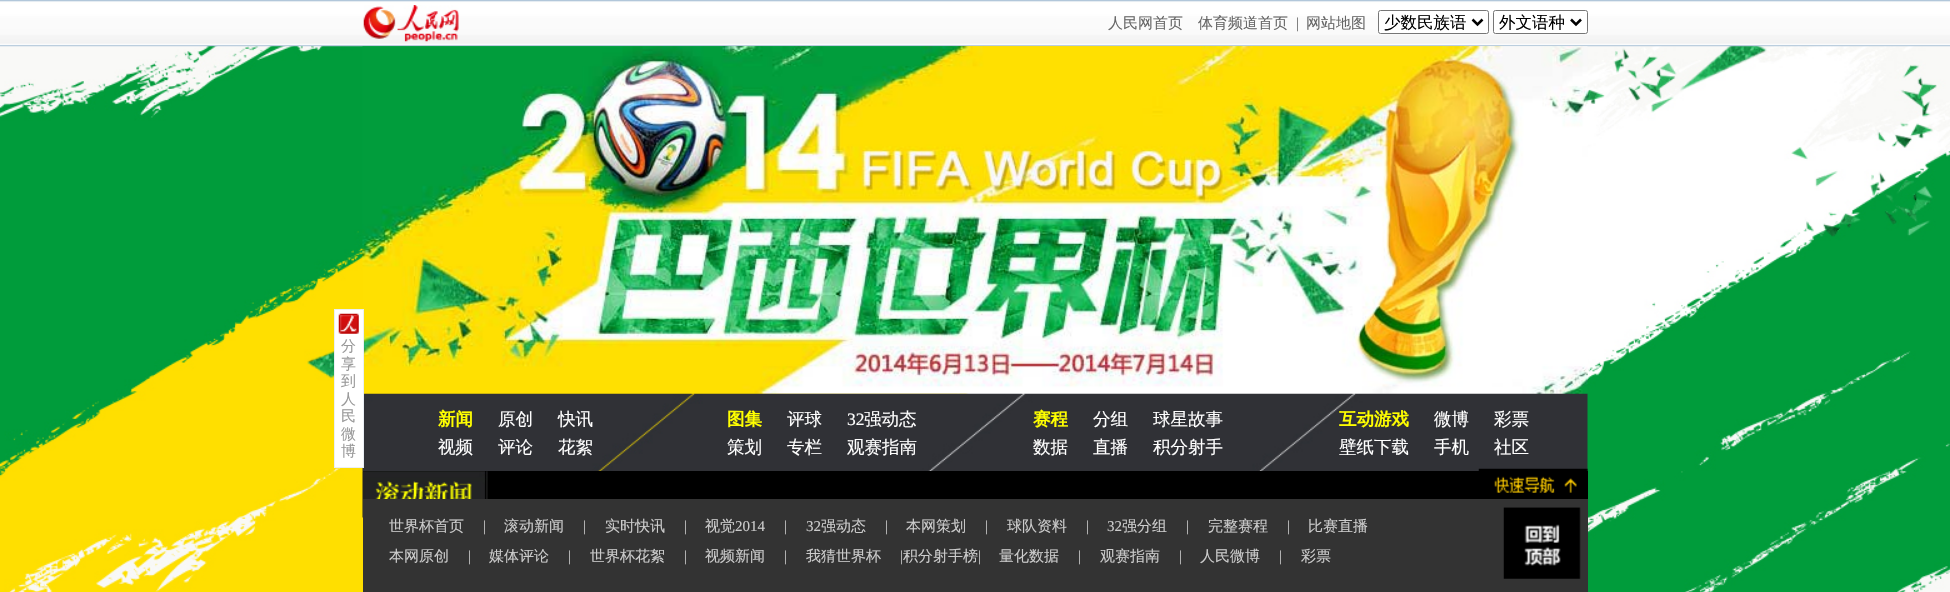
#include "include/core/SkBlurTypes.h"
#include "include/core/SkCanvas.h"
#include "include/core/SkData.h"
#include "include/core/SkFont.h"
#include "include/core/SkFontMgr.h"
#include "include/core/SkImage.h"
#include "include/core/SkMaskFilter.h"
#include "include/core/SkPaint.h"
#include "include/core/SkPathBuilder.h"
#include "include/core/SkTextBlob.h"
#include "include/effects/SkDashPathEffect.h"
#include "include/effects/SkGradientShader.h"
#include "include/utils/SkParsePath.h"

extern sk_sp<SkFontMgr> fontMgr;

void draw(SkCanvas* canvas) {
    SkPaint p;
    p.setAntiAlias(true);
    auto font = [&](const char* family, int weight, float size, bool italic = false) {
        SkFontStyle style(weight, SkFontStyle::kNormal_Width,
            italic ? SkFontStyle::kItalic_Slant : SkFontStyle::kUpright_Slant);
        SkFont result(fontMgr->matchFamilyStyle(family, style), size);
        result.setSubpixel(true);
        return result;
    };
    auto drawPhoto = [&](const char* path, float l, float t, float r, float b) {
        auto image = SkImages::DeferredFromEncodedData(SkData::MakeFromFileName(path));
        canvas->drawImageRect(image, SkRect::MakeLTRB(l, t, r, b), SkSamplingOptions());
    };
    canvas->clear(0xFFFFFFFF);
    drawPhoto("media/2.png", 0, 46, 1950, 592);
    drawPhoto("media/3.png", 0, 0, 1950, 47);
    drawPhoto("media/5.png", 362, 46, 1588, 394);
    drawPhoto("media/6.png", 362, 393, 1588, 472);
    p.setColor(0xFFFFFFFF);
    canvas->drawRect(SkRect::MakeLTRB(335, 310, 363, 467), p);
    drawPhoto("media/1.png", 338, 313, 359, 334);
    p.setStyle(SkPaint::kStroke_Style);
    p.setStrokeWidth(1);
    p.setColor(0xFFEAEFF5);
    canvas->drawRect(SkRect::MakeLTRB(334.5f, 309.5f, 363.5f, 467.5f), p);
    auto font1 = font("WenQuanYi Zen Hei", 500, 15);
    p.setStyle(SkPaint::kFill_Style);
    p.setColor(0xFF999999);
    {
        const struct { const char* s; float x, y; } items[] = {
            {"分", 341, 351},
            {"享", 341, 369},
            {"到", 341, 386},
            {"人", 341, 404},
            {"民", 341, 421},
            {"微", 341, 439},
            {"博", 341, 456},
        };
        for (auto [s, x, y] : items) {
            canvas->drawString(s, x, y, font1, p);
        }
    }
    drawPhoto("media/4.png", 363, 5, 459, 42);
    p.setColor(0xFF666666);
    canvas->drawString("人民网首页", 1108, 28, font1, p);
    canvas->drawString("体育频道首页", 1198, 28, font1, p);
    auto font2 = font("Liberation Serif", 400, 15);
    canvas->drawString("|", 1296, 28, font2, p);
    canvas->drawString("网站地图", 1306, 28, font1, p);
    p.setColor(0xFFFFFFFF);
    canvas->drawRoundRect(SkRect::MakeLTRB(1378.5f, 10.5f, 1488.5f, 33.5f), 2, 2, p);
    p.setStyle(SkPaint::kStroke_Style);
    p.setColor(0xFF767676);
    canvas->drawRoundRect(SkRect::MakeLTRB(1378.5f, 10.5f, 1488.5f, 33.5f), 2, 2, p);
    p.setStrokeWidth(2.5f);
    p.setColor(0xFF000000);
    canvas->drawPath(SkPathBuilder().moveTo(1472.5f, 19.5f).lineTo(1477.5f, 24.5f).lineTo(1482.5f, 19.5f).detach(), p);
    auto font3 = font("WenQuanYi Zen Hei", 500, 16.5f);
    p.setStyle(SkPaint::kFill_Style);
    canvas->drawString("少数民族语", 1384, 28, font3, p);
    p.setColor(0xFFFFFFFF);
    canvas->drawRoundRect(SkRect::MakeLTRB(1493.5f, 10.5f, 1587.5f, 33.5f), 2, 2, p);
    p.setStyle(SkPaint::kStroke_Style);
    p.setStrokeWidth(1);
    p.setColor(0xFF767676);
    canvas->drawRoundRect(SkRect::MakeLTRB(1493.5f, 10.5f, 1587.5f, 33.5f), 2, 2, p);
    p.setStrokeWidth(2.5f);
    p.setColor(0xFF000000);
    canvas->drawPath(SkPathBuilder().moveTo(1571, 19.5f).lineTo(1576, 24.5f).lineTo(1581, 19.5f).detach(), p);
    p.setStyle(SkPaint::kFill_Style);
    canvas->drawString("外文语种", 1499, 28, font3, p);
    auto font4 = font("WenQuanYi Zen Hei", 700, 17.5f);
    p.setColor(0xFFFFFF00);
    canvas->drawString("新闻", 438, 425, font4, p);
    auto font5 = font("WenQuanYi Zen Hei", 500, 17.5f);
    p.setColor(0xFFFFFFFF);
    {
        const struct { const char* s; float x, y; } items[] = {
            {"原创", 498, 425},
            {"快讯", 558, 425},
            {"视频", 438, 453},
            {"评论", 498, 453},
            {"花絮", 558, 453},
        };
        for (auto [s, x, y] : items) {
            canvas->drawString(s, x, y, font5, p);
        }
    }
    p.setColor(0xFFFFFF00);
    canvas->drawString("图集", 727, 425, font4, p);
    p.setColor(0xFFFFFFFF);
    canvas->drawString("评球", 787, 425, font5, p);
    auto font6 = font("Liberation Serif", 400, 17.5f);
    canvas->drawString("32", 847, 425, font6, p);
    {
        const struct { const char* s; float x, y; } items[] = {
            {"强动态", 864, 425},
            {"策划", 727, 453},
            {"专栏", 787, 453},
            {"观赛指南", 847, 453},
        };
        for (auto [s, x, y] : items) {
            canvas->drawString(s, x, y, font5, p);
        }
    }
    p.setColor(0xFFFFFF00);
    canvas->drawString("赛程", 1033, 425, font4, p);
    p.setColor(0xFFFFFFFF);
    {
        const struct { const char* s; float x, y; } items[] = {
            {"分组", 1093, 425},
            {"球星故事", 1153, 425},
            {"数据", 1033, 453},
            {"直播", 1093, 453},
            {"积分射手", 1153, 453},
        };
        for (auto [s, x, y] : items) {
            canvas->drawString(s, x, y, font5, p);
        }
    }
    p.setColor(0xFFFFFF00);
    canvas->drawString("互动游戏", 1339, 425, font4, p);
    p.setColor(0xFFFFFFFF);
    {
        const struct { const char* s; float x, y; } items[] = {
            {"微博", 1434, 425},
            {"彩票", 1494, 425},
            {"壁纸下载", 1339, 453},
            {"手机", 1434, 453},
            {"社区", 1494, 453},
        };
        for (auto [s, x, y] : items) {
            canvas->drawString(s, x, y, font5, p);
        }
    }
    p.setColor(0xFF000000);
    canvas->drawRect(SkRect::MakeLTRB(363, 471, 1588, 499), p);
    drawPhoto("media/7.png", 362, 471, 488, 518);
    drawPhoto("media/8.png", 1478, 468, 1588, 499);
    p.setColor(0xFF333333);
    canvas->drawRect(SkRect::MakeLTRB(363, 499, 1588, 592), p);
    p.setColor(0xFFCCCCCC);
    canvas->drawString("世界杯首页", 389, 531, font1, p);
    canvas->drawString("|", 483, 531, font2, p);
    canvas->drawString("滚动新闻", 504, 531, font1, p);
    canvas->drawString("|", 583, 531, font2, p);
    canvas->drawString("实时快讯", 605, 531, font1, p);
    canvas->drawString("|", 684, 531, font2, p);
    canvas->drawString("视觉", 705, 531, font1, p);
    {
        const struct { const char* s; float x, y; } items[] = {
            {"2014", 735, 531},
            {"|", 784, 531},
            {"32", 806, 531},
        };
        for (auto [s, x, y] : items) {
            canvas->drawString(s, x, y, font2, p);
        }
    }
    canvas->drawString("强动态", 821, 531, font1, p);
    canvas->drawString("|", 885, 531, font2, p);
    canvas->drawString("本网策划", 906, 531, font1, p);
    canvas->drawString("|", 985, 531, font2, p);
    canvas->drawString("球队资料", 1007, 531, font1, p);
    canvas->drawString("|", 1086, 531, font2, p);
    canvas->drawString("32", 1107, 531, font2, p);
    canvas->drawString("强分组", 1122, 531, font1, p);
    canvas->drawString("|", 1186, 531, font2, p);
    canvas->drawString("完整赛程", 1208, 531, font1, p);
    canvas->drawString("|", 1287, 531, font2, p);
    canvas->drawString("比赛直播", 1308, 531, font1, p);
    canvas->drawString("本网原创", 389, 561, font1, p);
    canvas->drawString("|", 468, 561, font2, p);
    canvas->drawString("媒体评论", 489, 561, font1, p);
    canvas->drawString("|", 568, 561, font2, p);
    canvas->drawString("世界杯花絮", 590, 561, font1, p);
    canvas->drawString("|", 684, 561, font2, p);
    canvas->drawString("视频新闻", 705, 561, font1, p);
    canvas->drawString("|", 784, 561, font2, p);
    canvas->drawString("我猜世界杯", 806, 561, font1, p);
    canvas->drawString("|", 900, 561, font2, p);
    canvas->drawString("积分射手榜", 903, 561, font1, p);
    canvas->drawString("|", 978, 561, font2, p);
    canvas->drawString("量化数据", 999, 561, font1, p);
    canvas->drawString("|", 1078, 561, font2, p);
    canvas->drawString("观赛指南", 1100, 561, font1, p);
    canvas->drawString("|", 1179, 561, font2, p);
    canvas->drawString("人民微博", 1200, 561, font1, p);
    canvas->drawString("|", 1279, 561, font2, p);
    canvas->drawString("彩票", 1301, 561, font1, p);
    drawPhoto("media/9.png", 1503, 507, 1581, 579);
}
